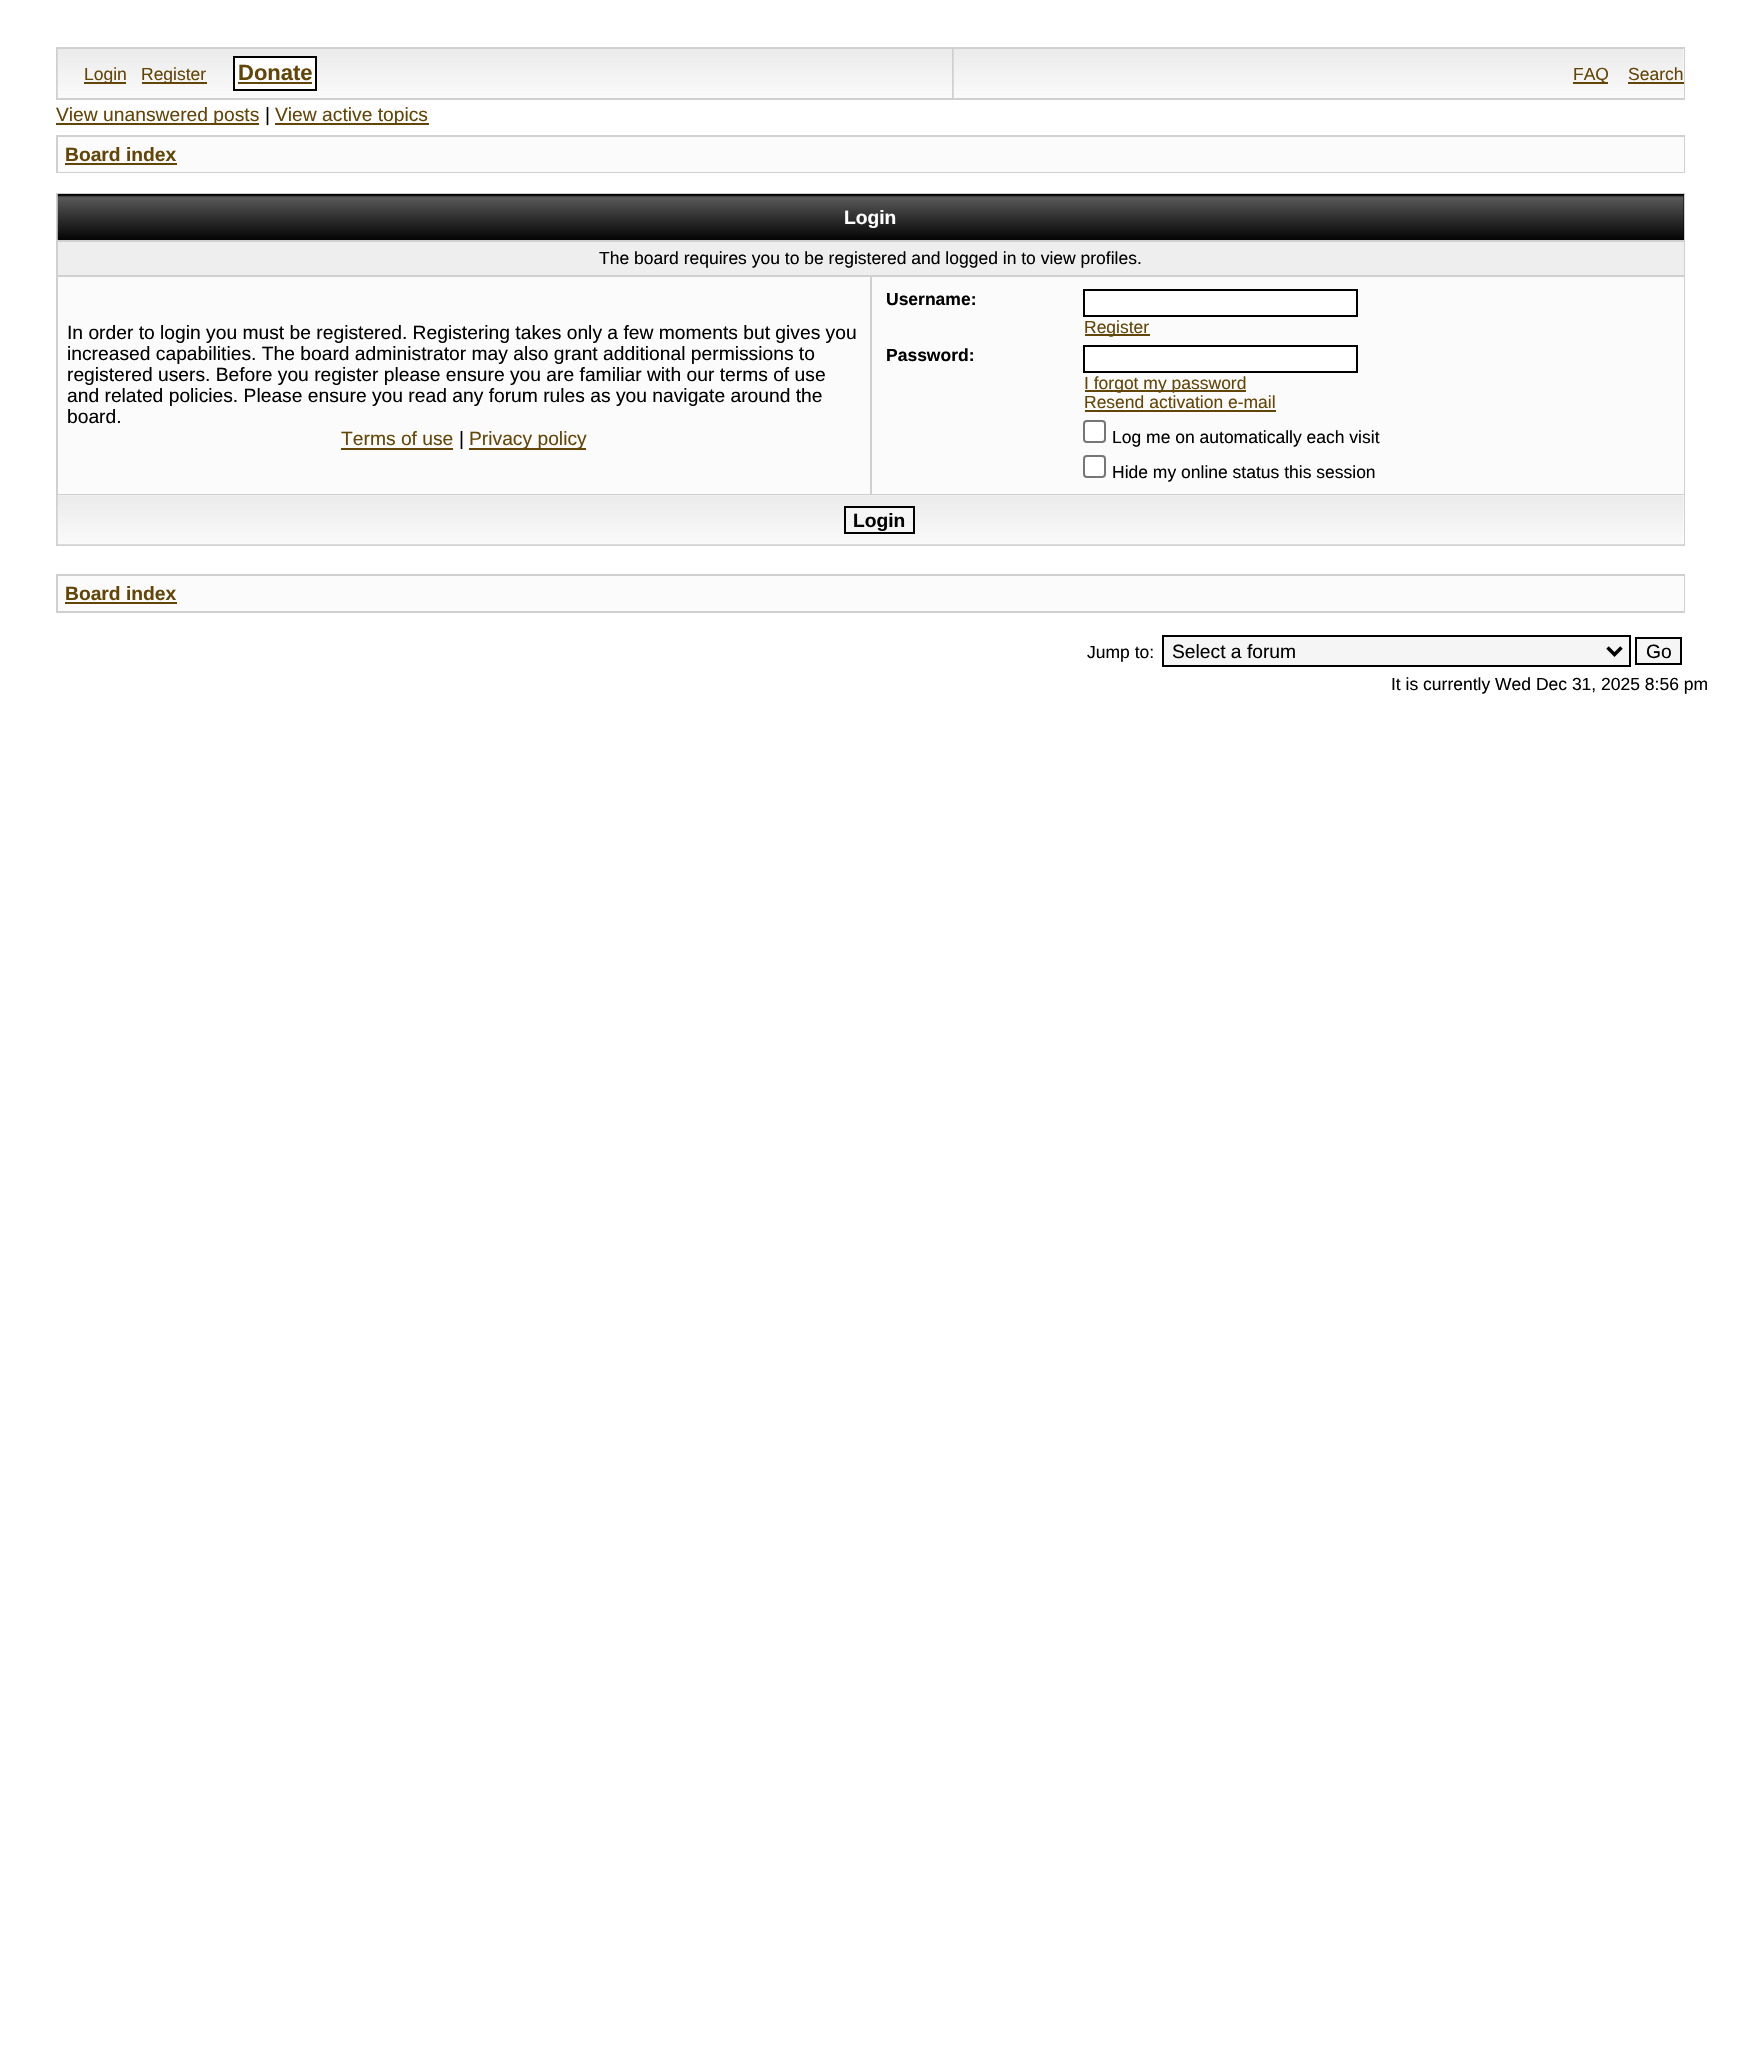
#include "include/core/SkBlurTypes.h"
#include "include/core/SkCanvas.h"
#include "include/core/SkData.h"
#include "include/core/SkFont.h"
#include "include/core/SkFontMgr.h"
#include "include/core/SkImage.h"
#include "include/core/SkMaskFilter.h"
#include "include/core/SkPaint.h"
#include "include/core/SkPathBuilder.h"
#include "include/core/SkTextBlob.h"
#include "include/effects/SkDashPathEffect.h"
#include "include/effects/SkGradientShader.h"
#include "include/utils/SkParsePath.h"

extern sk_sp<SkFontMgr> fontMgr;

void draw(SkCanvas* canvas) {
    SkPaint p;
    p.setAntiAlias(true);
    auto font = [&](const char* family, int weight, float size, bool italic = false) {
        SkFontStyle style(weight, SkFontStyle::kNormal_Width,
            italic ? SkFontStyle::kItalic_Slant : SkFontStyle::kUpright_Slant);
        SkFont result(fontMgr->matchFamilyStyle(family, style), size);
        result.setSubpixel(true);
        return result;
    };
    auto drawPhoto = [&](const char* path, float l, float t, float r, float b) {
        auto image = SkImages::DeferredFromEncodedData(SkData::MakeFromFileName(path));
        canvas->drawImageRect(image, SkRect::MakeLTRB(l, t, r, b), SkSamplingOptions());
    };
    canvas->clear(0xFFFFFFFF);
    p.setColor(0xFFD0D0D0);
    canvas->drawRect(SkRect::MakeLTRB(56, 47, 1685, 100), p);
    drawPhoto("media/1.png", 57, 49, 952, 98);
    p.setColor(0xFF634507);
    canvas->drawRect(SkRect::MakeLTRB(84, 82, 126, 84), p);
    auto font1 = font("Liberation Sans", 400, 17.5f);
    canvas->drawString("Login", 84, 80, font1, p);
    canvas->drawRect(SkRect::MakeLTRB(142, 82, 207, 84), p);
    canvas->drawString("Register", 141, 80, font1, p);
    p.setColor(0xFFFFFFFF);
    canvas->drawRect(SkRect::MakeLTRB(234, 57, 316, 90), p);
    p.setStyle(SkPaint::kStroke_Style);
    p.setStrokeWidth(2);
    p.setColor(0xFF000000);
    canvas->drawRect(SkRect::MakeLTRB(234, 57, 316, 90), p);
    auto font2 = font("Liberation Sans", 700, 22);
    p.setStyle(SkPaint::kFill_Style);
    p.setColor(0xFF634507);
    canvas->drawString("Donate", 238, 80, font2, p);
    canvas->drawRect(SkRect::MakeLTRB(238, 82, 312, 84), p);
    p.setColor(0xFFFFFFFF);
    canvas->drawRect(SkRect::MakeLTRB(1683, 49, 1684, 98), p);
    drawPhoto("media/2.png", 953, 49, 1684, 98);
    p.setColor(0xFF634507);
    canvas->drawRect(SkRect::MakeLTRB(1573, 82, 1608, 84), p);
    canvas->drawString("FAQ", 1573, 80, font1, p);
    canvas->drawString("Search", 1628, 80, font1, p);
    canvas->drawRect(SkRect::MakeLTRB(1628, 82, 1684, 84), p);
    canvas->drawRect(SkRect::MakeLTRB(56, 123, 259, 125), p);
    auto font3 = font("Liberation Sans", 400, 19.25f);
    canvas->drawString("View unanswered posts", 56, 121, font3, p);
    p.setColor(0xFF000000);
    canvas->drawString("|", 265, 121, font3, p);
    p.setColor(0xFF634507);
    canvas->drawRect(SkRect::MakeLTRB(275, 123, 429, 125), p);
    canvas->drawString("View active topics", 275, 121, font3, p);
    p.setColor(0xFFD0D0D0);
    canvas->drawRect(SkRect::MakeLTRB(56, 135, 1685, 173), p);
    p.setColor(0xFFFBFBFB);
    canvas->drawRect(SkRect::MakeLTRB(58, 137, 1684, 172), p);
    auto font4 = font("Liberation Sans", 700, 19.25f);
    p.setColor(0xFF634507);
    canvas->drawString("Board index", 65, 161, font4, p);
    {
        const struct { float l, t, r, b; SkColor color; } items[] = {
            {65, 163, 177, 165, 0xFF634507},
            {56, 193, 1685, 546, 0xFFD0D0D0},
            {58, 194, 1684, 240, 0xFF000000},
        };
        for (auto [l, t, r, b, color] : items) {
            p.setColor(color);
            canvas->drawRect(SkRect::MakeLTRB(l, t, r, b), p);
        }
    }
    drawPhoto("media/3.png", 57, 194, 1684, 240);
    p.setColor(0xFFFFFFFF);
    canvas->drawString("Login", 844, 224, font4, p);
    p.setColor(0xFFEEEEEE);
    canvas->drawRect(SkRect::MakeLTRB(58, 242, 1684, 275), p);
    p.setColor(0xFF000000);
    canvas->drawString("The board requires you to be registered and logged in to view profiles.", 599, 264, font1, p);
    p.setColor(0xFFFBFBFB);
    canvas->drawRect(SkRect::MakeLTRB(58, 277, 870, 494), p);
    p.setColor(0xFF000000);
    {
        const struct { const char* s; float x, y; } items[] = {
            {"In order to login you must be registered. Registering takes only a few moments but gives you", 67, 339},
            {"increased capabilities. The board administrator may also grant additional permissions to", 67, 360},
            {"registered users. Before you register please ensure you are familiar with our terms of use", 67, 381},
            {"and related policies. Please ensure you read any forum rules as you navigate around the", 67, 402},
            {"board.", 67, 423},
        };
        for (auto [s, x, y] : items) {
            canvas->drawString(s, x, y, font3, p);
        }
    }
    p.setColor(0xFF634507);
    canvas->drawString("Terms of use", 341, 445, font3, p);
    canvas->drawRect(SkRect::MakeLTRB(341, 448, 453, 450), p);
    p.setColor(0xFF000000);
    canvas->drawString("|", 459, 445, font3, p);
    p.setColor(0xFF634507);
    canvas->drawRect(SkRect::MakeLTRB(469, 448, 586, 450), p);
    canvas->drawString("Privacy policy", 469, 445, font3, p);
    p.setColor(0xFFFBFBFB);
    canvas->drawRect(SkRect::MakeLTRB(872, 277, 1684, 494), p);
    auto font5 = font("Liberation Sans", 700, 17.5f);
    p.setColor(0xFF000000);
    canvas->drawString("Username:", 886, 305, font5, p);
    p.setColor(0xFFFFFFFF);
    canvas->drawRect(SkRect::MakeLTRB(1084, 290, 1357, 316), p);
    p.setStyle(SkPaint::kStroke_Style);
    p.setColor(0xFF000000);
    canvas->drawRect(SkRect::MakeLTRB(1084, 290, 1357, 316), p);
    p.setStyle(SkPaint::kFill_Style);
    p.setColor(0xFF634507);
    canvas->drawRect(SkRect::MakeLTRB(1085, 334, 1150, 336), p);
    canvas->drawString("Register", 1084, 333, font1, p);
    p.setColor(0xFF000000);
    canvas->drawString("Password:", 886, 361, font5, p);
    p.setColor(0xFFFFFFFF);
    canvas->drawRect(SkRect::MakeLTRB(1084, 346, 1357, 372), p);
    p.setStyle(SkPaint::kStroke_Style);
    p.setColor(0xFF000000);
    canvas->drawRect(SkRect::MakeLTRB(1084, 346, 1357, 372), p);
    p.setStyle(SkPaint::kFill_Style);
    p.setColor(0xFF634507);
    canvas->drawRect(SkRect::MakeLTRB(1085, 390, 1246, 392), p);
    canvas->drawString("I forgot my password", 1084, 389, font1, p);
    canvas->drawString("Resend activation e-mail", 1084, 408, font1, p);
    canvas->drawRect(SkRect::MakeLTRB(1085, 410, 1276, 412), p);
    p.setColor(0xFFFFFFFF);
    canvas->drawRoundRect(SkRect::MakeLTRB(1084, 421, 1105, 442), 3, 3, p);
    p.setStyle(SkPaint::kStroke_Style);
    p.setColor(0xFF767676);
    canvas->drawRoundRect(SkRect::MakeLTRB(1084, 421, 1105, 442), 3, 3, p);
    p.setStyle(SkPaint::kFill_Style);
    p.setColor(0xFF000000);
    canvas->drawString("Log me on automatically each visit", 1112, 443, font1, p);
    p.setColor(0xFFFFFFFF);
    canvas->drawRoundRect(SkRect::MakeLTRB(1084, 456, 1105, 477), 3, 3, p);
    p.setStyle(SkPaint::kStroke_Style);
    p.setColor(0xFF767676);
    canvas->drawRoundRect(SkRect::MakeLTRB(1084, 456, 1105, 477), 3, 3, p);
    p.setStyle(SkPaint::kFill_Style);
    p.setColor(0xFF000000);
    canvas->drawString("Hide my online status this session", 1112, 478, font1, p);
    p.setColor(0xFFFFFFFF);
    canvas->drawRect(SkRect::MakeLTRB(58, 495, 1684, 544), p);
    drawPhoto("media/4.png", 57, 495, 1684, 545);
    p.setColor(0xFFF5F5F5);
    canvas->drawRect(SkRect::MakeLTRB(846, 508, 913, 521), p);
    p.setStyle(SkPaint::kStroke_Style);
    p.setColor(0xFF000000);
    canvas->drawRect(SkRect::MakeLTRB(845, 507, 914, 533), p);
    p.setStyle(SkPaint::kFill_Style);
    canvas->drawString("Login", 853, 527, font4, p);
    p.setColor(0xFFD0D0D0);
    canvas->drawRect(SkRect::MakeLTRB(56, 574, 1685, 613), p);
    p.setColor(0xFFFBFBFB);
    canvas->drawRect(SkRect::MakeLTRB(58, 576, 1684, 611), p);
    p.setColor(0xFF634507);
    canvas->drawString("Board index", 65, 600, font4, p);
    canvas->drawRect(SkRect::MakeLTRB(65, 602, 177, 604), p);
    p.setColor(0xFF000000);
    canvas->drawString("Jump to:", 1087, 658, font1, p);
    p.setColor(0xFFF5F5F5);
    canvas->drawRect(SkRect::MakeLTRB(1163, 636, 1630, 666), p);
    p.setStyle(SkPaint::kStroke_Style);
    p.setColor(0xFF000000);
    canvas->drawRect(SkRect::MakeLTRB(1163, 636, 1630, 666), p);
    p.setStrokeWidth(3.5f);
    canvas->drawPath(SkPathBuilder().moveTo(1607.5f, 647.5f).lineTo(1614.5f, 654.5f).lineTo(1621.5f, 647.5f).detach(), p);
    p.setStyle(SkPaint::kFill_Style);
    canvas->drawString("Select a forum", 1172, 658, font3, p);
    p.setColor(0xFFF5F5F5);
    canvas->drawRect(SkRect::MakeLTRB(1636, 638, 1681, 664), p);
    p.setStyle(SkPaint::kStroke_Style);
    p.setStrokeWidth(2);
    p.setColor(0xFF000000);
    canvas->drawRect(SkRect::MakeLTRB(1636, 638, 1681, 664), p);
    p.setStyle(SkPaint::kFill_Style);
    canvas->drawString("Go", 1646, 658, font3, p);
    canvas->drawString("It is currently Wed Dec 31, 2025 8:56 pm", 1391, 690, font1, p);
}
